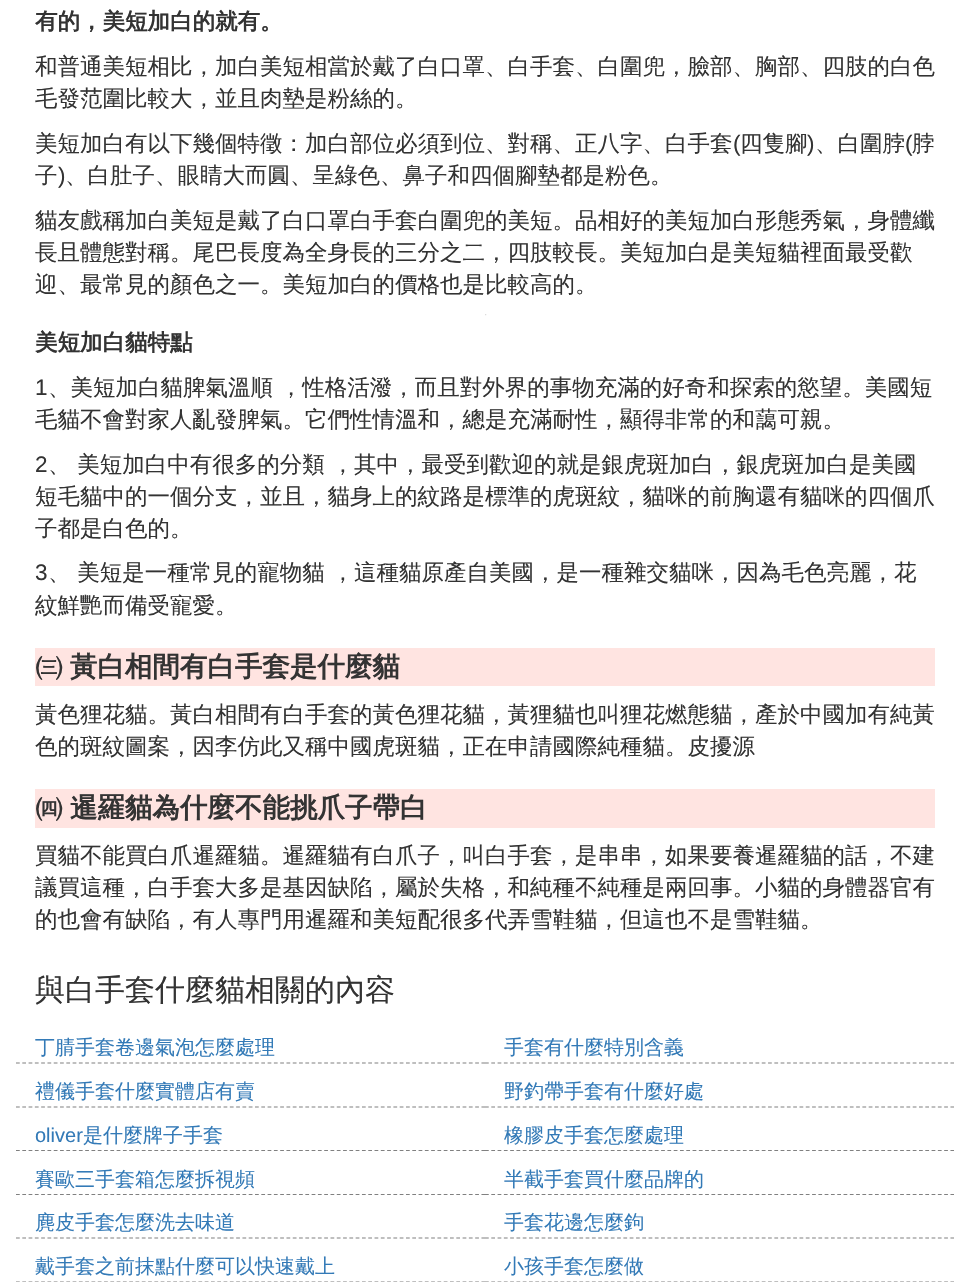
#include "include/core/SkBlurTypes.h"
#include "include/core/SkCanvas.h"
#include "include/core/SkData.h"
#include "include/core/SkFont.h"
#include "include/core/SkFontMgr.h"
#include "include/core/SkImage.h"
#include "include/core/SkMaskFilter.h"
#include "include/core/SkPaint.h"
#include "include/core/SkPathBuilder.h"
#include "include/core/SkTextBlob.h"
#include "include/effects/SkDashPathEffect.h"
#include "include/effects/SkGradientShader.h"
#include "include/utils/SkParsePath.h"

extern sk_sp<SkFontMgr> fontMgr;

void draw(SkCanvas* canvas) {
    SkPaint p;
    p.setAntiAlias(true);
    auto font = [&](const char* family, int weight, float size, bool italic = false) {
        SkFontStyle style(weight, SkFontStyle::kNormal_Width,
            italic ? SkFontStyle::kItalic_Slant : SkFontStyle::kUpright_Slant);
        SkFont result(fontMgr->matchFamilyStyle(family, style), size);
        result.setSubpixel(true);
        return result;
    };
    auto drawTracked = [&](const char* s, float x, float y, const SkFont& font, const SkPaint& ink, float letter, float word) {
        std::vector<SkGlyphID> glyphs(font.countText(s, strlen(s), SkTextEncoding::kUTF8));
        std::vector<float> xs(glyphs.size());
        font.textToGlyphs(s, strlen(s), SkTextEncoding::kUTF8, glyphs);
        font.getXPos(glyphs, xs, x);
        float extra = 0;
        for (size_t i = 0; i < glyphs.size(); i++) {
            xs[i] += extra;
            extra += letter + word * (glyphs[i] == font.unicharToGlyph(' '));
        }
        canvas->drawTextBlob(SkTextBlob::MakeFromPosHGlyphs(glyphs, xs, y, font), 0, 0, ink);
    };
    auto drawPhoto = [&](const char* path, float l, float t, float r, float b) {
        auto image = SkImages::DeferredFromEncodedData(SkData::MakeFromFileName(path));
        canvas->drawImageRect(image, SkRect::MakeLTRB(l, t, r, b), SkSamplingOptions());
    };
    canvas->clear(0xFFFFFFFF);
    auto font1 = font("WenQuanYi Zen Hei", 700, 22.5f);
    p.setColor(0xFF333333);
    canvas->drawString("有的，美短加白的就有。", 35, 29, font1, p);
    auto font2 = font("WenQuanYi Zen Hei", 500, 22.5f);
    {
        const struct { const char* s; float x, y; } items[] = {
            {"和普通美短相比，加白美短相當於戴了白口罩、白手套、白圍兜，臉部、胸部、四肢的白色", 35, 74},
            {"毛發范圍比較大，並且肉墊是粉絲的。", 35, 106},
            {"美短加白有以下幾個特徵：加白部位必須到位、對稱、正八字、白手套", 35, 151},
        };
        for (auto [s, x, y] : items) {
            canvas->drawString(s, x, y, font2, p);
        }
    }
    auto font3 = font("Liberation Sans", 400, 22.5f);
    canvas->drawString("(", 733, 151, font3, p);
    canvas->drawString("四隻腳", 740, 151, font2, p);
    canvas->drawString(")", 807, 151, font3, p);
    canvas->drawString("、白圍脖", 815, 151, font2, p);
    canvas->drawString("(", 905, 151, font3, p);
    canvas->drawString("脖", 912, 151, font2, p);
    canvas->drawString("子", 35, 183, font2, p);
    canvas->drawString(")", 58, 183, font3, p);
    {
        const struct { const char* s; float x, y; } items[] = {
            {"、白肚子、眼睛大而圓、呈綠色、鼻子和四個腳墊都是粉色。", 65, 183},
            {"貓友戲稱加白美短是戴了白口罩白手套白圍兜的美短。品相好的美短加白形態秀氣，身體纖", 35, 228},
            {"長且體態對稱。尾巴長度為全身長的三分之二，四肢較長。美短加白是美短貓裡面最受歡", 35, 260},
            {"迎、最常見的顏色之一。美短加白的價格也是比較高的。", 35, 292},
        };
        for (auto [s, x, y] : items) {
            canvas->drawString(s, x, y, font2, p);
        }
    }
    drawPhoto("media/1.png", 485, 314, 487, 316);
    canvas->drawString("美短加白貓特點", 35, 350, font1, p);
    canvas->drawString("1", 35, 395, font3, p);
    canvas->drawString("、美短加白貓脾氣溫順 ，性格活潑，而且對外界的事物充滿的好奇和探索的慾望。美國短", 48, 395, font2, p);
    canvas->drawString("毛貓不會對家人亂發脾氣。它們性情溫和，總是充滿耐性，顯得非常的和藹可親。", 35, 427, font2, p);
    canvas->drawString("2", 35, 472, font3, p);
    {
        const struct { const char* s; float x, y; } items[] = {
            {"、 美短加白中有很多的分類 ，其中，最受到歡迎的就是銀虎斑加白，銀虎斑加白是美國", 48, 472},
            {"短毛貓中的一個分支，並且，貓身上的紋路是標準的虎斑紋，貓咪的前胸還有貓咪的四個爪", 35, 504},
            {"子都是白色的。", 35, 536},
        };
        for (auto [s, x, y] : items) {
            canvas->drawString(s, x, y, font2, p);
        }
    }
    canvas->drawString("3", 35, 580, font3, p);
    canvas->drawString("、 美短是一種常見的寵物貓 ，這種貓原產自美國，是一種雜交貓咪，因為毛色亮麗，花", 48, 580, font2, p);
    canvas->drawString("紋鮮艷而備受寵愛。", 35, 613, font2, p);
    p.setColor(0xFFFFE4E1);
    canvas->drawRect(SkRect::MakeLTRB(35, 648, 935, 686), p);
    auto font4 = font("WenQuanYi Zen Hei", 700, 27.5f);
    p.setColor(0xFF333333);
    drawTracked("㈢ 黃白相間有白手套是什麼貓", 35, 676, font4, p, 0, -1);
    canvas->drawString("黃色狸花貓。黃白相間有白手套的黃色狸花貓，黃狸貓也叫狸花燃態貓，產於中國加有純黃", 35, 722, font2, p);
    canvas->drawString("色的斑紋圖案，因李仿此又稱中國虎斑貓，正在申請國際純種貓。皮擾源", 35, 754, font2, p);
    p.setColor(0xFFFFE4E1);
    canvas->drawRect(SkRect::MakeLTRB(35, 789, 935, 828), p);
    p.setColor(0xFF333333);
    drawTracked("㈣ 暹羅貓為什麼不能挑爪子帶白", 35, 817, font4, p, 0, -1);
    {
        const struct { const char* s; float x, y; } items[] = {
            {"買貓不能買白爪暹羅貓。暹羅貓有白爪子，叫白手套，是串串，如果要養暹羅貓的話，不建", 35, 863},
            {"議買這種，白手套大多是基因缺陷，屬於失格，和純種不純種是兩回事。小貓的身體器官有", 35, 895},
            {"的也會有缺陷，有人專門用暹羅和美短配很多代弄雪鞋貓，但這也不是雪鞋貓。", 35, 927},
        };
        for (auto [s, x, y] : items) {
            canvas->drawString(s, x, y, font2, p);
        }
    }
    auto font5 = font("WenQuanYi Zen Hei", 500, 30);
    canvas->drawString("與白手套什麼貓相關的內容", 35, 1000, font5, p);
    p.setStyle(SkPaint::kStroke_Style);
    p.setStrokeWidth(1.2f);
    p.setColor(0xFF808080);
    p.setPathEffect(SkDashPathEffect::Make({{3.75f, 2.54f}}, 0));
    canvas->drawPath(SkPathBuilder().moveTo(16, 1063).lineTo(485, 1063).detach(), p);
    p.setPathEffect(nullptr);
    auto font6 = font("WenQuanYi Zen Hei", 500, 20);
    p.setStyle(SkPaint::kFill_Style);
    p.setColor(0xFF337AB7);
    canvas->drawString("丁腈手套卷邊氣泡怎麼處理", 35, 1054, font6, p);
    p.setStyle(SkPaint::kStroke_Style);
    p.setColor(0xFF808080);
    p.setPathEffect(SkDashPathEffect::Make({{3.75f, 2.54f}}, 0));
    canvas->drawPath(SkPathBuilder().moveTo(485, 1063).lineTo(954, 1063).detach(), p);
    p.setPathEffect(nullptr);
    p.setStyle(SkPaint::kFill_Style);
    p.setColor(0xFF337AB7);
    canvas->drawString("手套有什麼特別含義", 504, 1054, font6, p);
    p.setStyle(SkPaint::kStroke_Style);
    p.setColor(0xFF808080);
    p.setPathEffect(SkDashPathEffect::Make({{3.75f, 2.54f}}, 0));
    canvas->drawPath(SkPathBuilder().moveTo(16, 1107).lineTo(485, 1107).detach(), p);
    p.setPathEffect(nullptr);
    p.setStyle(SkPaint::kFill_Style);
    p.setColor(0xFF337AB7);
    canvas->drawString("禮儀手套什麼實體店有賣", 35, 1098, font6, p);
    p.setStyle(SkPaint::kStroke_Style);
    p.setColor(0xFF808080);
    p.setPathEffect(SkDashPathEffect::Make({{3.75f, 2.54f}}, 0));
    canvas->drawPath(SkPathBuilder().moveTo(485, 1107).lineTo(954, 1107).detach(), p);
    p.setPathEffect(nullptr);
    p.setStyle(SkPaint::kFill_Style);
    p.setColor(0xFF337AB7);
    canvas->drawString("野釣帶手套有什麼好處", 504, 1098, font6, p);
    p.setStyle(SkPaint::kStroke_Style);
    p.setColor(0xFF808080);
    p.setPathEffect(SkDashPathEffect::Make({{3.75f, 2.54f}}, 0));
    canvas->drawPath(SkPathBuilder().moveTo(16, 1150.5f).lineTo(485, 1150.5f).detach(), p);
    p.setPathEffect(nullptr);
    auto font7 = font("Liberation Sans", 400, 20);
    p.setStyle(SkPaint::kFill_Style);
    p.setColor(0xFF337AB7);
    canvas->drawString("oliver", 35, 1142, font7, p);
    canvas->drawString("是什麼牌子手套", 83, 1142, font6, p);
    p.setStyle(SkPaint::kStroke_Style);
    p.setColor(0xFF808080);
    p.setPathEffect(SkDashPathEffect::Make({{3.75f, 2.54f}}, 0));
    canvas->drawPath(SkPathBuilder().moveTo(485, 1150.5f).lineTo(954, 1150.5f).detach(), p);
    p.setPathEffect(nullptr);
    p.setStyle(SkPaint::kFill_Style);
    p.setColor(0xFF337AB7);
    canvas->drawString("橡膠皮手套怎麼處理", 504, 1142, font6, p);
    p.setStyle(SkPaint::kStroke_Style);
    p.setColor(0xFF808080);
    p.setPathEffect(SkDashPathEffect::Make({{3.75f, 2.54f}}, 0));
    canvas->drawPath(SkPathBuilder().moveTo(16, 1194.5f).lineTo(485, 1194.5f).detach(), p);
    p.setPathEffect(nullptr);
    p.setStyle(SkPaint::kFill_Style);
    p.setColor(0xFF337AB7);
    canvas->drawString("賽歐三手套箱怎麼拆視頻", 35, 1186, font6, p);
    p.setStyle(SkPaint::kStroke_Style);
    p.setColor(0xFF808080);
    p.setPathEffect(SkDashPathEffect::Make({{3.75f, 2.54f}}, 0));
    canvas->drawPath(SkPathBuilder().moveTo(485, 1194.5f).lineTo(954, 1194.5f).detach(), p);
    p.setPathEffect(nullptr);
    p.setStyle(SkPaint::kFill_Style);
    p.setColor(0xFF337AB7);
    canvas->drawString("半截手套買什麼品牌的", 504, 1186, font6, p);
    p.setStyle(SkPaint::kStroke_Style);
    p.setColor(0xFF808080);
    p.setPathEffect(SkDashPathEffect::Make({{3.75f, 2.54f}}, 0));
    canvas->drawPath(SkPathBuilder().moveTo(16, 1238).lineTo(485, 1238).detach(), p);
    p.setPathEffect(nullptr);
    p.setStyle(SkPaint::kFill_Style);
    p.setColor(0xFF337AB7);
    canvas->drawString("麂皮手套怎麼洗去味道", 35, 1229, font6, p);
    p.setStyle(SkPaint::kStroke_Style);
    p.setColor(0xFF808080);
    p.setPathEffect(SkDashPathEffect::Make({{3.75f, 2.54f}}, 0));
    canvas->drawPath(SkPathBuilder().moveTo(485, 1238).lineTo(954, 1238).detach(), p);
    p.setPathEffect(nullptr);
    p.setStyle(SkPaint::kFill_Style);
    p.setColor(0xFF337AB7);
    canvas->drawString("手套花邊怎麼鉤", 504, 1229, font6, p);
    p.setStyle(SkPaint::kStroke_Style);
    p.setColor(0xFF808080);
    p.setPathEffect(SkDashPathEffect::Make({{3.75f, 2.54f}}, 0));
    canvas->drawPath(SkPathBuilder().moveTo(16, 1282).lineTo(485, 1282).detach(), p);
    p.setPathEffect(nullptr);
    p.setStyle(SkPaint::kFill_Style);
    p.setColor(0xFF337AB7);
    canvas->drawString("戴手套之前抹點什麼可以快速戴上", 35, 1273, font6, p);
    p.setStyle(SkPaint::kStroke_Style);
    p.setColor(0xFF808080);
    p.setPathEffect(SkDashPathEffect::Make({{3.75f, 2.54f}}, 0));
    canvas->drawPath(SkPathBuilder().moveTo(485, 1282).lineTo(954, 1282).detach(), p);
    p.setPathEffect(nullptr);
    p.setStyle(SkPaint::kFill_Style);
    p.setColor(0xFF337AB7);
    canvas->drawString("小孩手套怎麼做", 504, 1273, font6, p);
}
